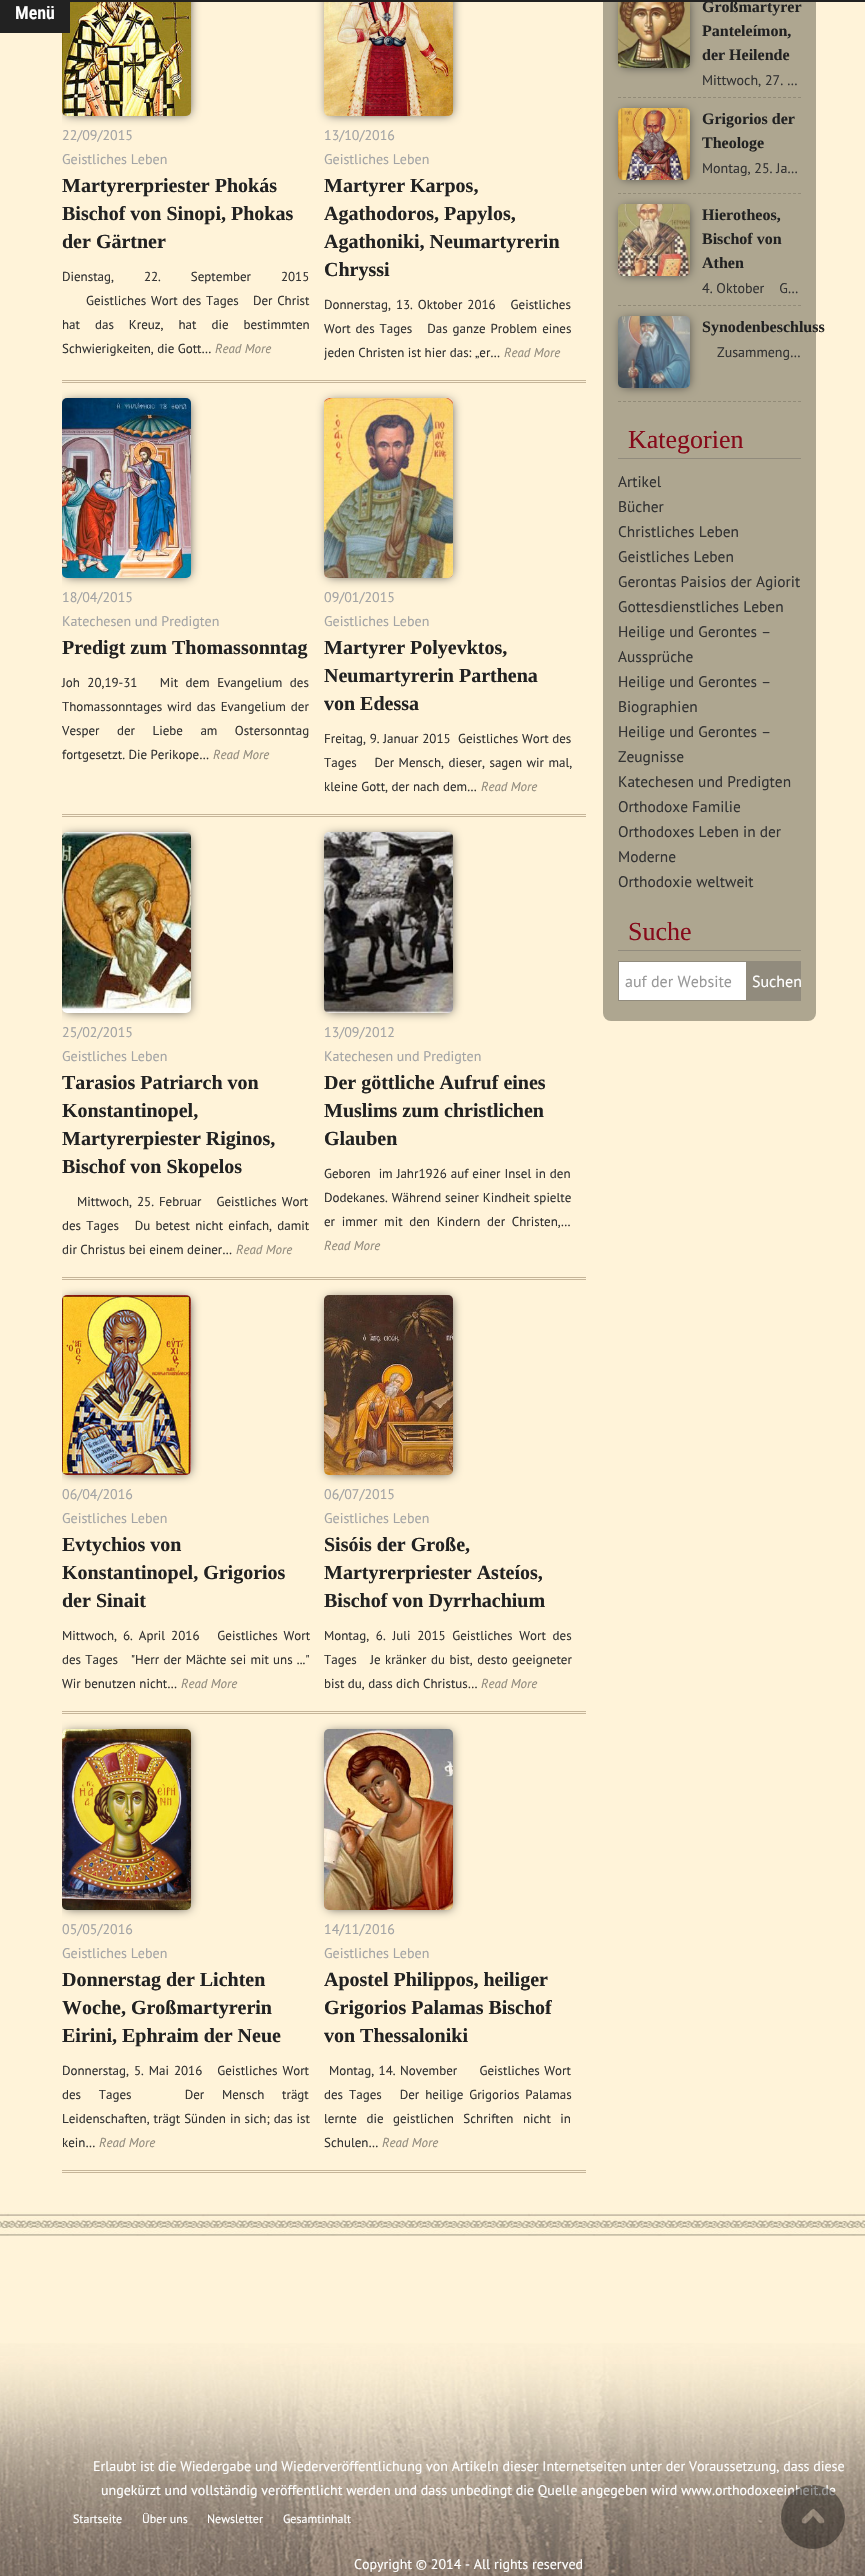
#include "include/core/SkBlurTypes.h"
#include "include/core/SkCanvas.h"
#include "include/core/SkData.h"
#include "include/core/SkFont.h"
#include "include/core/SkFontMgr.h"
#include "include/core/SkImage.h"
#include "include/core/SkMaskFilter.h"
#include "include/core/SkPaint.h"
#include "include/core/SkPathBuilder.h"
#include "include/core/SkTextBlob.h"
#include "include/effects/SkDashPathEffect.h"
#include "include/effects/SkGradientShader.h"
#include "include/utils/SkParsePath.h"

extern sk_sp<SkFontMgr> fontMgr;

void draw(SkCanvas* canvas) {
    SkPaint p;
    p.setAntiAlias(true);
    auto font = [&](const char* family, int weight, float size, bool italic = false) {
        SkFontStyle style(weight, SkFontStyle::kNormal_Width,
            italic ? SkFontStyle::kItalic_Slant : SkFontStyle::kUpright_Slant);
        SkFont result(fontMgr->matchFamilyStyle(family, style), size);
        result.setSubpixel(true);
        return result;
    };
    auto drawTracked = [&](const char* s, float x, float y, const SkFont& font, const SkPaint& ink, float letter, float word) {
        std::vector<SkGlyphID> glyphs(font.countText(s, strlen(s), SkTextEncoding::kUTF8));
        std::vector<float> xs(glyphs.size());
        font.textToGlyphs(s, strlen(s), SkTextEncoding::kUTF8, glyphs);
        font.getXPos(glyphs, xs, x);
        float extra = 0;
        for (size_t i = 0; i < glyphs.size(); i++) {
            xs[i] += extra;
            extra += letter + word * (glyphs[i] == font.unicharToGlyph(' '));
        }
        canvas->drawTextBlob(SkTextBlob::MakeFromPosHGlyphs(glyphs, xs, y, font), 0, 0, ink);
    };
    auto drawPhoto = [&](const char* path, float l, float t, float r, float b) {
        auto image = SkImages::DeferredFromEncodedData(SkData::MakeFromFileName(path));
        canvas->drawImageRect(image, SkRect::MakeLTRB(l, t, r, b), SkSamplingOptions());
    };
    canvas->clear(0xFFFFF3D9);
    canvas->save();
    canvas->clipRect(SkRect::MakeLTRB(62, 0, 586, 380));
    p.setColor(0xFF323232);
    p.setMaskFilter(SkMaskFilter::MakeBlur(kNormal_SkBlurStyle, 5.5f));
    canvas->drawRoundRect(SkRect::MakeLTRB(66, -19, 189, 114), 2, 2, p);
    p.setMaskFilter(nullptr);
    canvas->restore();
    p.setMaskFilter(SkMaskFilter::MakeBlur(kNormal_SkBlurStyle, 5.5f));
    canvas->drawRoundRect(SkRect::MakeLTRB(328, -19, 451, 114), 2, 2, p);
    p.setMaskFilter(nullptr);
    p.setColor(0xFFAEA690);
    canvas->drawRoundRect(SkRect::MakeLTRB(603, -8, 816, 1021), 8, 8, p);
    p.setColor(0xFF323232);
    p.setMaskFilter(SkMaskFilter::MakeBlur(kNormal_SkBlurStyle, 5.5f));
    canvas->drawRoundRect(SkRect::MakeLTRB(622, 0, 688, 66), 2, 2, p);
    p.setMaskFilter(nullptr);
    p.setColor(0xFF222222);
    canvas->drawRect(SkRect::MakeLTRB(70, 0, 865, 2), p);
    drawPhoto("media/1.png", 62, 2, 191, 116);
    canvas->drawRect(SkRect::MakeLTRB(0, 0, 70, 33), p);
    auto font1 = font("Roboto Condensed", 600, 18);
    p.setColor(0xFFFFFFFF);
    canvas->drawString("Menü", 15, 19, font1, p);
    p.setColor(0xFFC6B599);
    canvas->drawRect(SkRect::MakeLTRB(62, 380, 586, 381), p);
    canvas->drawRect(SkRect::MakeLTRB(62, 382, 586, 383), p);
    auto font2 = font("PT Sans", 400, 14);
    p.setColor(0xFFA3A4A5);
    canvas->drawString("22/09/2015", 62, 140, font2, p);
    canvas->drawString("Geistliches Leben", 62, 164, font2, p);
    auto font3 = font("Liberation Serif", 700, 20);
    p.setColor(0xFF222222);
    {
        const struct { const char* s; float x, y; } items[] = {
            {"Martyrerpriester Phokás", 62, 192},
            {"Bischof von Sinopi, Phokas", 62, 220},
            {"der Gärtner", 62, 248},
        };
        for (auto [s, x, y] : items) {
            canvas->drawString(s, x, y, font3, p);
        }
    }
    auto font4 = font("PT Sans", 400, 13);
    p.setColor(0xFF333333);
    drawTracked("Dienstag, 22. September 2015", 62, 281, font4, p, 0, 26.5f);
    drawTracked("Geistliches Wort des Tages   Der Christ", 86, 305, font4, p, 0, 1.25f);
    drawTracked("hat das Kreuz, hat die bestimmten", 62, 329, font4, p, 0, 11.5f);
    canvas->drawString("Schwierigkeiten, die Gott…", 62, 353, font4, p);
    auto font5 = font("PT Sans", 400, 13, true);
    p.setColor(0xFF918B7D);
    canvas->drawString("Read More", 215, 353, font5, p);
    drawPhoto("media/2.png", 324, 2, 453, 116);
    p.setColor(0xFFA3A4A5);
    canvas->drawString("13/10/2016", 324, 140, font2, p);
    canvas->drawString("Geistliches Leben", 324, 164, font2, p);
    p.setColor(0xFF222222);
    {
        const struct { const char* s; float x, y; } items[] = {
            {"Martyrer Karpos,", 324, 192},
            {"Agathodoros, Papylos,", 324, 220},
            {"Agathoniki, Neumartyrerin", 324, 248},
            {"Chryssi", 324, 276},
        };
        for (auto [s, x, y] : items) {
            canvas->drawString(s, x, y, font3, p);
        }
    }
    p.setColor(0xFF333333);
    drawTracked("Donnerstag, 13. Oktober 2016   Geistliches", 324, 309, font4, p, 0, 1.5f);
    drawTracked("Wort des Tages   Das ganze Problem eines", 324, 333, font4, p, 0, 1.5f);
    canvas->drawString("jeden Christen ist hier das: „er…", 324, 357, font4, p);
    p.setColor(0xFF918B7D);
    canvas->drawString("Read More", 504, 357, font5, p);
    p.setColor(0xFFC6B599);
    canvas->drawRect(SkRect::MakeLTRB(62, 814, 586, 815), p);
    canvas->drawRect(SkRect::MakeLTRB(62, 816, 586, 817), p);
    canvas->save();
    canvas->clipRect(SkRect::MakeLTRB(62, 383, 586, 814));
    p.setColor(0xFF323232);
    p.setMaskFilter(SkMaskFilter::MakeBlur(kNormal_SkBlurStyle, 5.5f));
    canvas->drawRoundRect(SkRect::MakeLTRB(66, 402, 189, 576), 2, 2, p);
    p.setMaskFilter(nullptr);
    canvas->restore();
    drawPhoto("media/3.png", 62, 398, 191, 578);
    p.setColor(0xFFA3A4A5);
    canvas->drawString("18/04/2015", 62, 602, font2, p);
    canvas->drawString("Katechesen und Predigten", 62, 626, font2, p);
    p.setColor(0xFF222222);
    canvas->drawString("Predigt zum Thomassonntag", 62, 654, font3, p);
    p.setColor(0xFF333333);
    drawTracked("Joh 20,19-31   Mit dem Evangelium des", 62, 687, font4, p, 0, 4);
    drawTracked("Thomassonntages wird das Evangelium der", 62, 711, font4, p, 0, 1.5f);
    drawTracked("Vesper der Liebe am Ostersonntag", 62, 735, font4, p, 0, 14);
    canvas->drawString("fortgesetzt. Die Perikope…", 62, 759, font4, p);
    p.setColor(0xFF918B7D);
    canvas->drawString("Read More", 213, 759, font5, p);
    p.setColor(0xFF323232);
    p.setMaskFilter(SkMaskFilter::MakeBlur(kNormal_SkBlurStyle, 5.5f));
    canvas->drawRoundRect(SkRect::MakeLTRB(328, 402, 451, 576), 2, 2, p);
    p.setMaskFilter(nullptr);
    drawPhoto("media/4.png", 324, 398, 453, 578);
    p.setColor(0xFFA3A4A5);
    canvas->drawString("09/01/2015", 324, 602, font2, p);
    canvas->drawString("Geistliches Leben", 324, 626, font2, p);
    p.setColor(0xFF222222);
    {
        const struct { const char* s; float x, y; } items[] = {
            {"Martyrer Polyevktos,", 324, 654},
            {"Neumartyrerin Parthena", 324, 682},
            {"von Edessa", 324, 710},
        };
        for (auto [s, x, y] : items) {
            canvas->drawString(s, x, y, font3, p);
        }
    }
    p.setColor(0xFF333333);
    drawTracked("Freitag, 9. Januar 2015  Geistliches Wort des", 324, 743, font4, p, 0, 0.25f);
    drawTracked("Tages    Der Mensch, dieser, sagen wir mal,", 324, 767, font4, p, 0, 1);
    canvas->drawString("kleine Gott, der nach dem…", 324, 791, font4, p);
    p.setColor(0xFF918B7D);
    canvas->drawString("Read More", 481, 791, font5, p);
    p.setColor(0xFFC6B599);
    canvas->drawRect(SkRect::MakeLTRB(62, 1277, 586, 1278), p);
    canvas->drawRect(SkRect::MakeLTRB(62, 1279, 586, 1280), p);
    canvas->save();
    canvas->clipRect(SkRect::MakeLTRB(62, 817, 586, 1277));
    p.setColor(0xFF323232);
    p.setMaskFilter(SkMaskFilter::MakeBlur(kNormal_SkBlurStyle, 5.5f));
    canvas->drawRoundRect(SkRect::MakeLTRB(66, 836, 189, 1011), 2, 2, p);
    p.setMaskFilter(nullptr);
    canvas->restore();
    drawPhoto("media/5.png", 62, 832, 191, 1013);
    p.setColor(0xFFA3A4A5);
    canvas->drawString("25/02/2015", 62, 1037, font2, p);
    canvas->drawString("Geistliches Leben", 62, 1061, font2, p);
    p.setColor(0xFF222222);
    {
        const struct { const char* s; float x, y; } items[] = {
            {"Tarasios Patriarch von", 62, 1089},
            {"Konstantinopel,", 62, 1117},
            {"Martyrerpiester Riginos,", 62, 1145},
            {"Bischof von Skopelos", 62, 1173},
        };
        for (auto [s, x, y] : items) {
            canvas->drawString(s, x, y, font3, p);
        }
    }
    p.setColor(0xFF333333);
    drawTracked("Mittwoch, 25. Februar   Geistliches Wort", 77, 1206, font4, p, 0, 1.5f);
    drawTracked("des Tages   Du betest nicht einfach, damit", 62, 1230, font4, p, 0, 1.75f);
    canvas->drawString("dir Christus bei einem deiner…", 62, 1254, font4, p);
    p.setColor(0xFF918B7D);
    canvas->drawString("Read More", 236, 1254, font5, p);
    p.setColor(0xFF323232);
    p.setMaskFilter(SkMaskFilter::MakeBlur(kNormal_SkBlurStyle, 5.5f));
    canvas->drawRoundRect(SkRect::MakeLTRB(328, 836, 451, 1011), 2, 2, p);
    p.setMaskFilter(nullptr);
    drawPhoto("media/6.png", 324, 832, 453, 1013);
    p.setColor(0xFFA3A4A5);
    canvas->drawString("13/09/2012", 324, 1037, font2, p);
    canvas->drawString("Katechesen und Predigten", 324, 1061, font2, p);
    p.setColor(0xFF222222);
    {
        const struct { const char* s; float x, y; } items[] = {
            {"Der göttliche Aufruf eines", 324, 1089},
            {"Muslims zum christlichen", 324, 1117},
            {"Glauben", 324, 1145},
        };
        for (auto [s, x, y] : items) {
            canvas->drawString(s, x, y, font3, p);
        }
    }
    p.setColor(0xFF333333);
    drawTracked("Geboren  im Jahr1926 auf einer Insel in den", 324, 1178, font4, p, 0, 0.5f);
    drawTracked("Dodekanes. Während seiner Kindheit spielte", 324, 1202, font4, p, 0, 0.5f);
    drawTracked("er immer mit den Kindern der Christen,…", 324, 1226, font4, p, 0, 3.25f);
    p.setColor(0xFF918B7D);
    canvas->drawString("Read More", 324, 1250, font5, p);
    p.setColor(0xFFC6B599);
    canvas->drawRect(SkRect::MakeLTRB(62, 1711, 586, 1712), p);
    canvas->drawRect(SkRect::MakeLTRB(62, 1713, 586, 1714), p);
    canvas->save();
    canvas->clipRect(SkRect::MakeLTRB(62, 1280, 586, 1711));
    p.setColor(0xFF323232);
    p.setMaskFilter(SkMaskFilter::MakeBlur(kNormal_SkBlurStyle, 5.5f));
    canvas->drawRoundRect(SkRect::MakeLTRB(66, 1299, 189, 1473), 2, 2, p);
    p.setMaskFilter(nullptr);
    canvas->restore();
    drawPhoto("media/7.png", 62, 1295, 191, 1475);
    p.setColor(0xFFA3A4A5);
    canvas->drawString("06/04/2016", 62, 1499, font2, p);
    canvas->drawString("Geistliches Leben", 62, 1523, font2, p);
    p.setColor(0xFF222222);
    {
        const struct { const char* s; float x, y; } items[] = {
            {"Evtychios von", 62, 1551},
            {"Konstantinopel, Grigorios", 62, 1579},
            {"der Sinait", 62, 1607},
        };
        for (auto [s, x, y] : items) {
            canvas->drawString(s, x, y, font3, p);
        }
    }
    p.setColor(0xFF333333);
    drawTracked("Mittwoch, 6. April 2016   Geistliches Wort", 62, 1640, font4, p, 0, 2.5f);
    drawTracked("des Tages   \"Herr der Mächte sei mit uns ...\"", 62, 1664, font4, p, 0, 0.75f);
    canvas->drawString("Wir benutzen nicht…", 62, 1688, font4, p);
    p.setColor(0xFF918B7D);
    canvas->drawString("Read More", 181, 1688, font5, p);
    p.setColor(0xFF323232);
    p.setMaskFilter(SkMaskFilter::MakeBlur(kNormal_SkBlurStyle, 5.5f));
    canvas->drawRoundRect(SkRect::MakeLTRB(328, 1299, 451, 1473), 2, 2, p);
    p.setMaskFilter(nullptr);
    drawPhoto("media/8.png", 324, 1295, 453, 1475);
    p.setColor(0xFFA3A4A5);
    canvas->drawString("06/07/2015", 324, 1499, font2, p);
    canvas->drawString("Geistliches Leben", 324, 1523, font2, p);
    p.setColor(0xFF222222);
    {
        const struct { const char* s; float x, y; } items[] = {
            {"Sisóis der Große,", 324, 1551},
            {"Martyrerpriester Asteíos,", 324, 1579},
            {"Bischof von Dyrrhachium", 324, 1607},
        };
        for (auto [s, x, y] : items) {
            canvas->drawString(s, x, y, font3, p);
        }
    }
    p.setColor(0xFF333333);
    drawTracked("Montag, 6. Juli 2015 Geistliches Wort des", 324, 1640, font4, p, 0, 3.25f);
    drawTracked("Tages   Je kränker du bist, desto geeigneter", 324, 1664, font4, p, 0, 1);
    canvas->drawString("bist du, dass dich Christus…", 324, 1688, font4, p);
    p.setColor(0xFF918B7D);
    canvas->drawString("Read More", 481, 1688, font5, p);
    p.setColor(0xFFC6B599);
    canvas->drawRect(SkRect::MakeLTRB(62, 2170, 586, 2171), p);
    canvas->drawRect(SkRect::MakeLTRB(62, 2172, 586, 2173), p);
    canvas->save();
    canvas->clipRect(SkRect::MakeLTRB(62, 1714, 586, 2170));
    p.setColor(0xFF323232);
    p.setMaskFilter(SkMaskFilter::MakeBlur(kNormal_SkBlurStyle, 5.5f));
    canvas->drawRoundRect(SkRect::MakeLTRB(66, 1733, 189, 1908), 2, 2, p);
    p.setMaskFilter(nullptr);
    canvas->restore();
    drawPhoto("media/9.png", 62, 1729, 191, 1910);
    p.setColor(0xFFA3A4A5);
    canvas->drawString("05/05/2016", 62, 1934, font2, p);
    canvas->drawString("Geistliches Leben", 62, 1958, font2, p);
    p.setColor(0xFF222222);
    {
        const struct { const char* s; float x, y; } items[] = {
            {"Donnerstag der Lichten", 62, 1986},
            {"Woche, Großmartyrerin", 62, 2014},
            {"Eirini, Ephraim der Neue", 62, 2042},
        };
        for (auto [s, x, y] : items) {
            canvas->drawString(s, x, y, font3, p);
        }
    }
    p.setColor(0xFF333333);
    drawTracked("Donnerstag, 5. Mai 2016   Geistliches Wort", 62, 2075, font4, p, 0, 1.5f);
    drawTracked("des Tages   Der Mensch trägt", 62, 2099, font4, p, 0, 14.25f);
    drawTracked("Leidenschaften, trägt Sünden in sich; das ist", 62, 2123, font4, p, 0, 0.5f);
    canvas->drawString("kein…", 62, 2147, font4, p);
    p.setColor(0xFF918B7D);
    canvas->drawString("Read More", 99, 2147, font5, p);
    p.setColor(0xFF323232);
    p.setMaskFilter(SkMaskFilter::MakeBlur(kNormal_SkBlurStyle, 5.5f));
    canvas->drawRoundRect(SkRect::MakeLTRB(328, 1733, 451, 1908), 2, 2, p);
    p.setMaskFilter(nullptr);
    drawPhoto("media/10.png", 324, 1729, 453, 1910);
    p.setColor(0xFFA3A4A5);
    canvas->drawString("14/11/2016", 324, 1934, font2, p);
    canvas->drawString("Geistliches Leben", 324, 1958, font2, p);
    p.setColor(0xFF222222);
    {
        const struct { const char* s; float x, y; } items[] = {
            {"Apostel Philippos, heiliger", 324, 1986},
            {"Grigorios Palamas Bischof", 324, 2014},
            {"von Thessaloniki", 324, 2042},
        };
        for (auto [s, x, y] : items) {
            canvas->drawString(s, x, y, font3, p);
        }
    }
    p.setColor(0xFF333333);
    drawTracked("Montag, 14. November     Geistliches Wort", 329, 2075, font4, p, 0, 1);
    drawTracked("des Tages   Der heilige Grigorios Palamas", 324, 2099, font4, p, 0, 2.5f);
    drawTracked("lernte die geistlichen Schriften nicht in", 324, 2123, font4, p, 0, 6);
    canvas->drawString("Schulen…", 324, 2147, font4, p);
    p.setColor(0xFF918B7D);
    canvas->drawString("Read More", 382, 2147, font5, p);
    p.setStyle(SkPaint::kStroke_Style);
    p.setStrokeWidth(1);
    p.setColor(0xFF928B78);
    p.setPathEffect(SkDashPathEffect::Make({{3, 2}}, 0));
    canvas->drawPath(SkPathBuilder().moveTo(618, 97.5f).lineTo(801, 97.5f).detach(), p);
    p.setPathEffect(nullptr);
    drawPhoto("media/11.png", 618, 2, 690, 68);
    auto font6 = font("Liberation Serif", 700, 16);
    p.setStyle(SkPaint::kFill_Style);
    p.setColor(0xFF222222);
    {
        const struct { const char* s; float x, y; } items[] = {
            {"Großmartyrer", 702, 12},
            {"Panteleímon,", 702, 36},
            {"der Heilende", 702, 60},
        };
        for (auto [s, x, y] : items) {
            canvas->drawString(s, x, y, font6, p);
        }
    }
    p.setColor(0xFF333333);
    canvas->drawString("Mittwoch, 27. …", 702, 85, font2, p);
    p.setStyle(SkPaint::kStroke_Style);
    p.setColor(0xFF928B78);
    p.setPathEffect(SkDashPathEffect::Make({{3, 2}}, 0));
    canvas->drawPath(SkPathBuilder().moveTo(618, 193.5f).lineTo(801, 193.5f).detach(), p);
    p.setPathEffect(nullptr);
    p.setStyle(SkPaint::kFill_Style);
    p.setColor(0xFF323232);
    p.setMaskFilter(SkMaskFilter::MakeBlur(kNormal_SkBlurStyle, 5.5f));
    canvas->drawRoundRect(SkRect::MakeLTRB(622, 112, 688, 178), 2, 2, p);
    p.setMaskFilter(nullptr);
    drawPhoto("media/12.png", 618, 108, 690, 180);
    p.setColor(0xFF222222);
    canvas->drawString("Grigorios der", 702, 124, font6, p);
    canvas->drawString("Theologe", 702, 148, font6, p);
    p.setColor(0xFF333333);
    canvas->drawString("Montag, 25. Ja…", 702, 173, font2, p);
    p.setStyle(SkPaint::kStroke_Style);
    p.setColor(0xFF928B78);
    p.setPathEffect(SkDashPathEffect::Make({{3, 2}}, 0));
    canvas->drawPath(SkPathBuilder().moveTo(618, 305.5f).lineTo(801, 305.5f).detach(), p);
    p.setPathEffect(nullptr);
    p.setStyle(SkPaint::kFill_Style);
    p.setColor(0xFF323232);
    p.setMaskFilter(SkMaskFilter::MakeBlur(kNormal_SkBlurStyle, 5.5f));
    canvas->drawRoundRect(SkRect::MakeLTRB(622, 208, 688, 274), 2, 2, p);
    p.setMaskFilter(nullptr);
    drawPhoto("media/13.png", 618, 204, 690, 276);
    p.setColor(0xFF222222);
    {
        const struct { const char* s; float x, y; } items[] = {
            {"Hierotheos,", 702, 220},
            {"Bischof von", 702, 244},
            {"Athen", 702, 268},
        };
        for (auto [s, x, y] : items) {
            canvas->drawString(s, x, y, font6, p);
        }
    }
    p.setColor(0xFF333333);
    canvas->drawString("4. Oktober    G…", 702, 293, font2, p);
    p.setStyle(SkPaint::kStroke_Style);
    p.setColor(0xFF928B78);
    p.setPathEffect(SkDashPathEffect::Make({{3, 2}}, 0));
    canvas->drawPath(SkPathBuilder().moveTo(618, 401.5f).lineTo(801, 401.5f).detach(), p);
    p.setPathEffect(nullptr);
    p.setStyle(SkPaint::kFill_Style);
    p.setColor(0xFF323232);
    p.setMaskFilter(SkMaskFilter::MakeBlur(kNormal_SkBlurStyle, 5.5f));
    canvas->drawRoundRect(SkRect::MakeLTRB(622, 320, 688, 386), 2, 2, p);
    p.setMaskFilter(nullptr);
    drawPhoto("media/14.png", 618, 316, 690, 388);
    p.setColor(0xFF222222);
    canvas->drawString("Synodenbeschluss", 702, 332, font6, p);
    p.setColor(0xFF333333);
    canvas->drawString("Zusammeng…", 717, 357, font2, p);
    auto font7 = font("Liberation Serif", 400, 26);
    p.setColor(0xFF860A1A);
    canvas->drawString("Kategorien", 628, 448, font7, p);
    p.setColor(0xFF918B7D);
    canvas->drawRect(SkRect::MakeLTRB(618, 458, 801, 459), p);
    auto font8 = font("PT Sans", 400, 15.4f);
    p.setColor(0xFF333333);
    {
        const struct { const char* s; float x, y; } items[] = {
            {"Artikel", 618, 487},
            {"Bücher", 618, 512},
            {"Christliches Leben", 618, 537},
            {"Geistliches Leben", 618, 562},
            {"Gerontas Paisios der Agiorit", 618, 587},
            {"Gottesdienstliches Leben", 618, 612},
            {"Heilige und Gerontes –", 618, 637},
            {"Aussprüche", 618, 662},
            {"Heilige und Gerontes –", 618, 687},
            {"Biographien", 618, 712},
            {"Heilige und Gerontes –", 618, 737},
            {"Zeugnisse", 618, 762},
            {"Katechesen und Predigten", 618, 787},
            {"Orthodoxe Familie", 618, 812},
            {"Orthodoxes Leben in der", 618, 837},
            {"Moderne", 618, 862},
            {"Orthodoxie weltweit", 618, 887},
        };
        for (auto [s, x, y] : items) {
            canvas->drawString(s, x, y, font8, p);
        }
    }
    p.setColor(0xFF860A1A);
    canvas->drawString("Suche", 628, 940, font7, p);
    p.setColor(0xFF918B7D);
    canvas->drawRect(SkRect::MakeLTRB(618, 950, 801, 951), p);
    p.setColor(0xFFFFFFFF);
    canvas->drawRect(SkRect::MakeLTRB(618.5f, 961.5f, 746.5f, 1000.5f), p);
    p.setStyle(SkPaint::kStroke_Style);
    p.setColor(0xFF918B7D);
    canvas->drawRect(SkRect::MakeLTRB(618.5f, 961.5f, 746.5f, 1000.5f), p);
    auto font9 = font("PT Sans", 400, 16);
    p.setStyle(SkPaint::kFill_Style);
    p.setColor(0xFF999999);
    canvas->drawString("auf der Website", 625, 987, font9, p);
    p.setColor(0xFF918B7D);
    canvas->drawRect(SkRect::MakeLTRB(747, 961, 801, 1001), p);
    p.setColor(0xFFFFFFFF);
    canvas->drawString("Suchen", 752, 987, font9, p);
    drawPhoto("media/15.png", 0, 2212, 865, 2236);
    drawPhoto("media/16.png", 0, 2343, 865, 2576);
    canvas->drawString("Erlaubt ist die Wiedergabe und Wiederveröffentlichung von Artikeln dieser Internetseiten unter der Voraussetzung, dass diese", 93, 2471, font2, p);
    canvas->drawString("ungekürzt und vollständig veröffentlicht werden und dass unbedingt die Quelle angegeben wird www.orthodoxeeinheit.de", 101, 2495, font2, p);
    auto font10 = font("PT Sans", 400, 12);
    {
        const struct { const char* s; float x, y; } items[] = {
            {"Startseite", 73, 2523},
            {"Über uns", 142, 2523},
            {"Newsletter", 207, 2523},
            {"Gesamtinhalt", 283, 2523},
        };
        for (auto [s, x, y] : items) {
            canvas->drawString(s, x, y, font10, p);
        }
    }
    canvas->drawString("Copyright © 2014 - All rights reserved", 354, 2569, font2, p);
    drawPhoto("media/17.png", 781, 2485, 845, 2549);
}
